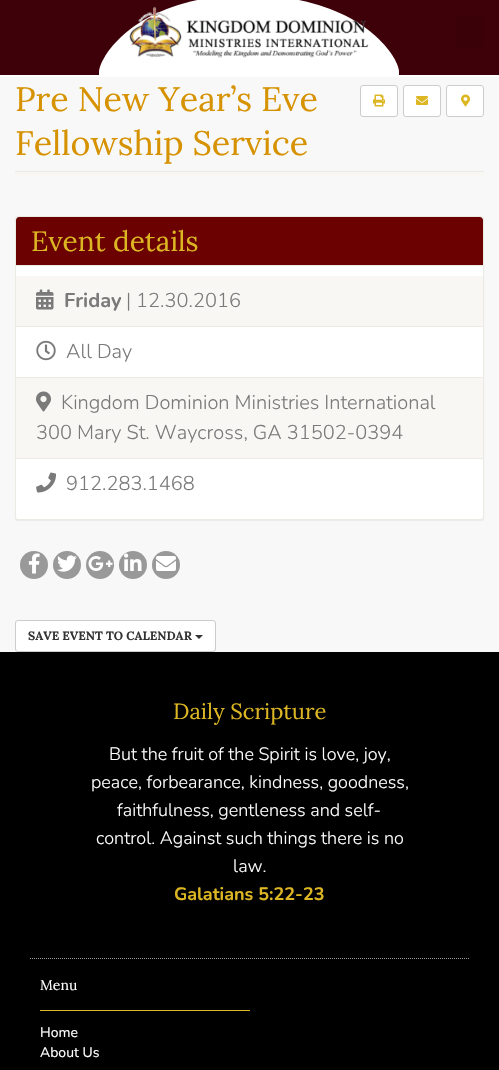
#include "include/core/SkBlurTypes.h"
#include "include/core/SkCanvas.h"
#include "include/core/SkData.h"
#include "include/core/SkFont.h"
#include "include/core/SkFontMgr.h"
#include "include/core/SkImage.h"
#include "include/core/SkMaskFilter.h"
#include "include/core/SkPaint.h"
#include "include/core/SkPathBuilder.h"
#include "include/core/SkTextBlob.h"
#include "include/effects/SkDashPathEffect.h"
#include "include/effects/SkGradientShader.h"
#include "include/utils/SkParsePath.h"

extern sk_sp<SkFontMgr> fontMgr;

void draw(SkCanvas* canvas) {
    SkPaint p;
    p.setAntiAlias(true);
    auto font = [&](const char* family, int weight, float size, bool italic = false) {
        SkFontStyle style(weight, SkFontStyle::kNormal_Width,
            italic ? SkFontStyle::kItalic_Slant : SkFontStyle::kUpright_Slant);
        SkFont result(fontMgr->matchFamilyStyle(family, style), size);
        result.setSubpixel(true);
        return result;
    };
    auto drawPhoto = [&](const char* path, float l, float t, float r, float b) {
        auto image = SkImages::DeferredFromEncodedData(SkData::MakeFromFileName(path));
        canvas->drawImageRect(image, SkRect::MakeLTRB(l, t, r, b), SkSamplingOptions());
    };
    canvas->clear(0xFFF8F8F8);
    p.setColor(0xFF3E0109);
    canvas->drawRect(SkRect::MakeLTRB(0, 0, 499, 75), p);
    p.setColor(0xFFFFFFFF);
    canvas->drawRect(SkRect::MakeLTRB(0, 75, 499, 77), p);
    canvas->drawPath(SkPathBuilder().moveTo(99, 72).lineTo(99, 75).lineTo(399, 75).lineTo(399, 72).cubicTo(399, 57, 361, -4, 249, -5).cubicTo(137, -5, 99, 57, 99, 72).close().detach(), p);
    drawPhoto("media/1.png", 129, 6, 369, 58);
    p.setColor(0xFF3B0109);
    canvas->drawRoundRect(SkRect::MakeLTRB(456, 15, 484, 48), 3, 3, p);
    p.setColor(0xFFECEAE4);
    canvas->drawRect(SkRect::MakeLTRB(15, 171, 484, 172), p);
    auto font1 = font("Lora", 400, 34);
    p.setColor(0xFFD69200);
    canvas->drawString("Pre New Year’s Eve", 15, 111, font1, p);
    canvas->drawString("Fellowship Service", 15, 155, font1, p);
    p.setColor(0xFFFFFFFF);
    canvas->drawRoundRect(SkRect::MakeLTRB(360.5f, 85.5f, 397.5f, 116.5f), 2.5f, 2.5f, p);
    p.setStyle(SkPaint::kStroke_Style);
    p.setStrokeWidth(1);
    p.setColor(0xFFCCCCCC);
    canvas->drawRoundRect(SkRect::MakeLTRB(360.5f, 85.5f, 397.5f, 116.5f), 2.5f, 2.5f, p);
    drawPhoto("media/2.png", 373, 94, 385, 107);
    p.setStyle(SkPaint::kFill_Style);
    p.setColor(0xFFFFFFFF);
    canvas->drawRoundRect(SkRect::MakeLTRB(403.5f, 85.5f, 440.5f, 116.5f), 2.5f, 2.5f, p);
    p.setStyle(SkPaint::kStroke_Style);
    p.setColor(0xFFCCCCCC);
    canvas->drawRoundRect(SkRect::MakeLTRB(403.5f, 85.5f, 440.5f, 116.5f), 2.5f, 2.5f, p);
    drawPhoto("media/3.png", 416, 96, 428, 105);
    p.setStyle(SkPaint::kFill_Style);
    p.setColor(0xFFFFFFFF);
    canvas->drawRoundRect(SkRect::MakeLTRB(446.5f, 85.5f, 483.5f, 116.5f), 2.5f, 2.5f, p);
    p.setStyle(SkPaint::kStroke_Style);
    p.setColor(0xFFCCCCCC);
    canvas->drawRoundRect(SkRect::MakeLTRB(446.5f, 85.5f, 483.5f, 116.5f), 2.5f, 2.5f, p);
    drawPhoto("media/4.png", 461, 94, 470, 107);
    p.setStyle(SkPaint::kFill_Style);
    p.setColor(0xFFF8F7F3);
    canvas->drawRect(SkRect::MakeLTRB(15, 172, 484, 176), p);
    p.setColor(0x0D000000);
    p.setMaskFilter(SkMaskFilter::MakeBlur(kNormal_SkBlurStyle, 0.5f));
    canvas->drawRoundRect(SkRect::MakeLTRB(15, 217, 484, 521), 3, 3, p);
    p.setMaskFilter(nullptr);
    p.setColor(0xFFFFFFFF);
    canvas->drawRoundRect(SkRect::MakeLTRB(15.5f, 216.5f, 483.5f, 519.5f), 2.5f, 2.5f, p);
    p.setStyle(SkPaint::kStroke_Style);
    p.setColor(0xFFECEAE4);
    canvas->drawRoundRect(SkRect::MakeLTRB(15.5f, 216.5f, 483.5f, 519.5f), 2.5f, 2.5f, p);
    p.setStyle(SkPaint::kFill_Style);
    p.setColor(0xFF6B0201);
    canvas->drawPath(SkPathBuilder().moveTo(19, 217).lineTo(480, 217).cubicTo(481.5f, 217, 483, 218.5f, 483, 220).lineTo(483, 266).lineTo(16, 266).lineTo(16, 220).cubicTo(16, 218.5f, 17.5f, 217, 19, 217).close().detach(), p);
    p.setColor(0xFFECEAE4);
    canvas->drawRect(SkRect::MakeLTRB(16, 265, 483, 266), p);
    auto font2 = font("Lora", 400, 28);
    p.setColor(0xFFDDB723);
    canvas->drawString("Event details", 31, 251, font2, p);
    p.setColor(0xFFF8F7F3);
    canvas->drawRect(SkRect::MakeLTRB(16, 276, 483, 326), p);
    p.setColor(0xFFECEAE4);
    canvas->drawRect(SkRect::MakeLTRB(16, 326, 483, 327), p);
    drawPhoto("media/5.png", 36, 289, 54, 310);
    auto font3 = font("Nunito", 700, 20);
    p.setColor(0xFF7A7A7A);
    canvas->drawString("Friday", 64, 307, font3, p);
    auto font4 = font("Nunito", 300, 20);
    canvas->drawString("| 12.30.2016", 126, 307, font4, p);
    p.setColor(0xFFECEAE4);
    canvas->drawRect(SkRect::MakeLTRB(16, 377, 483, 378), p);
    drawPhoto("media/6.png", 36, 340, 56, 361);
    p.setColor(0xFF7A7A7A);
    canvas->drawString("All Day", 66, 358, font4, p);
    p.setColor(0xFFF8F7F3);
    canvas->drawRect(SkRect::MakeLTRB(16, 378, 483, 458), p);
    p.setColor(0xFFECEAE4);
    canvas->drawRect(SkRect::MakeLTRB(16, 458, 483, 459), p);
    drawPhoto("media/7.png", 36, 391, 51, 412);
    p.setColor(0xFF7A7A7A);
    canvas->drawString("Kingdom Dominion Ministries International", 61, 409, font4, p);
    canvas->drawString("300 Mary St. Waycross, GA 31502-0394", 36, 439, font4, p);
    drawPhoto("media/8.png", 36, 472, 56, 493);
    canvas->drawString("912.283.1468", 66, 490, font4, p);
    p.setColor(0xFF999999);
    canvas->drawCircle(34, 565, 14, p);
    drawPhoto("media/9.png", 28, 553, 40, 574);
    canvas->drawCircle(67, 565, 14, p);
    drawPhoto("media/10.png", 57, 555, 77, 572);
    canvas->drawCircle(100, 565, 14, p);
    drawPhoto("media/11.png", 88, 556, 113, 571);
    canvas->drawCircle(133, 565, 14, p);
    drawPhoto("media/12.png", 124, 553, 142, 571);
    canvas->drawCircle(166, 565, 14, p);
    drawPhoto("media/13.png", 156, 556, 176, 571);
    p.setColor(0xFFFFFFFF);
    canvas->drawRoundRect(SkRect::MakeLTRB(15.5f, 620.5f, 215.5f, 651.5f), 2.5f, 2.5f, p);
    p.setStyle(SkPaint::kStroke_Style);
    p.setColor(0xFFCCCCCC);
    canvas->drawRoundRect(SkRect::MakeLTRB(15.5f, 620.5f, 215.5f, 651.5f), 2.5f, 2.5f, p);
    auto font5 = font("Lora", 700, 12);
    p.setStyle(SkPaint::kFill_Style);
    p.setColor(0xFF333333);
    canvas->drawString("SAVE EVENT TO CALENDAR", 28, 640, font5, p);
    canvas->drawPath(SkPathBuilder().moveTo(195, 635).lineTo(203, 635).lineTo(199, 639).close().detach(), p);
    p.setColor(0xFF000000);
    canvas->drawRect(SkRect::MakeLTRB(0, 652, 499, 1070), p);
    p.setStyle(SkPaint::kStroke_Style);
    p.setColor(0xFF9B9B9B);
    p.setPathEffect(SkDashPathEffect::Make({{1, 1}}, 0));
    canvas->drawPath(SkPathBuilder().moveTo(30, 958.5f).lineTo(469, 958.5f).detach(), p);
    p.setPathEffect(nullptr);
    auto font6 = font("Lora", 400, 22);
    p.setStyle(SkPaint::kFill_Style);
    p.setColor(0xFFDDB723);
    canvas->drawString("Daily Scripture", 173, 719, font6, p);
    auto font7 = font("Nunito", 300, 18);
    p.setColor(0xFFFFFFFF);
    {
        const struct { const char* s; float x, y; } items[] = {
            {"But the fruit of the Spirit is love, joy,", 109, 760},
            {"peace, forbearance, kindness, goodness,", 91, 788},
            {"faithfulness, gentleness and self-", 117, 816},
            {"control. Against such things there is no", 96, 844},
            {"law.", 233, 872},
        };
        for (auto [s, x, y] : items) {
            canvas->drawString(s, x, y, font7, p);
        }
    }
    auto font8 = font("Nunito", 700, 18);
    p.setColor(0xFFDDB723);
    canvas->drawString("Galatians 5:22-23", 174, 900, font8, p);
    auto font9 = font("Lora", 400, 14);
    p.setColor(0xFFFFFFFF);
    canvas->drawString("Menu", 40, 990, font9, p);
    p.setColor(0xFFDDB723);
    canvas->drawRect(SkRect::MakeLTRB(40, 1010, 250, 1011), p);
    auto font10 = font("Nunito", 400, 14);
    p.setColor(0xFFFFFFFF);
    canvas->drawString("Home", 40, 1037, font10, p);
    canvas->drawString("About Us", 40, 1057, font10, p);
}
